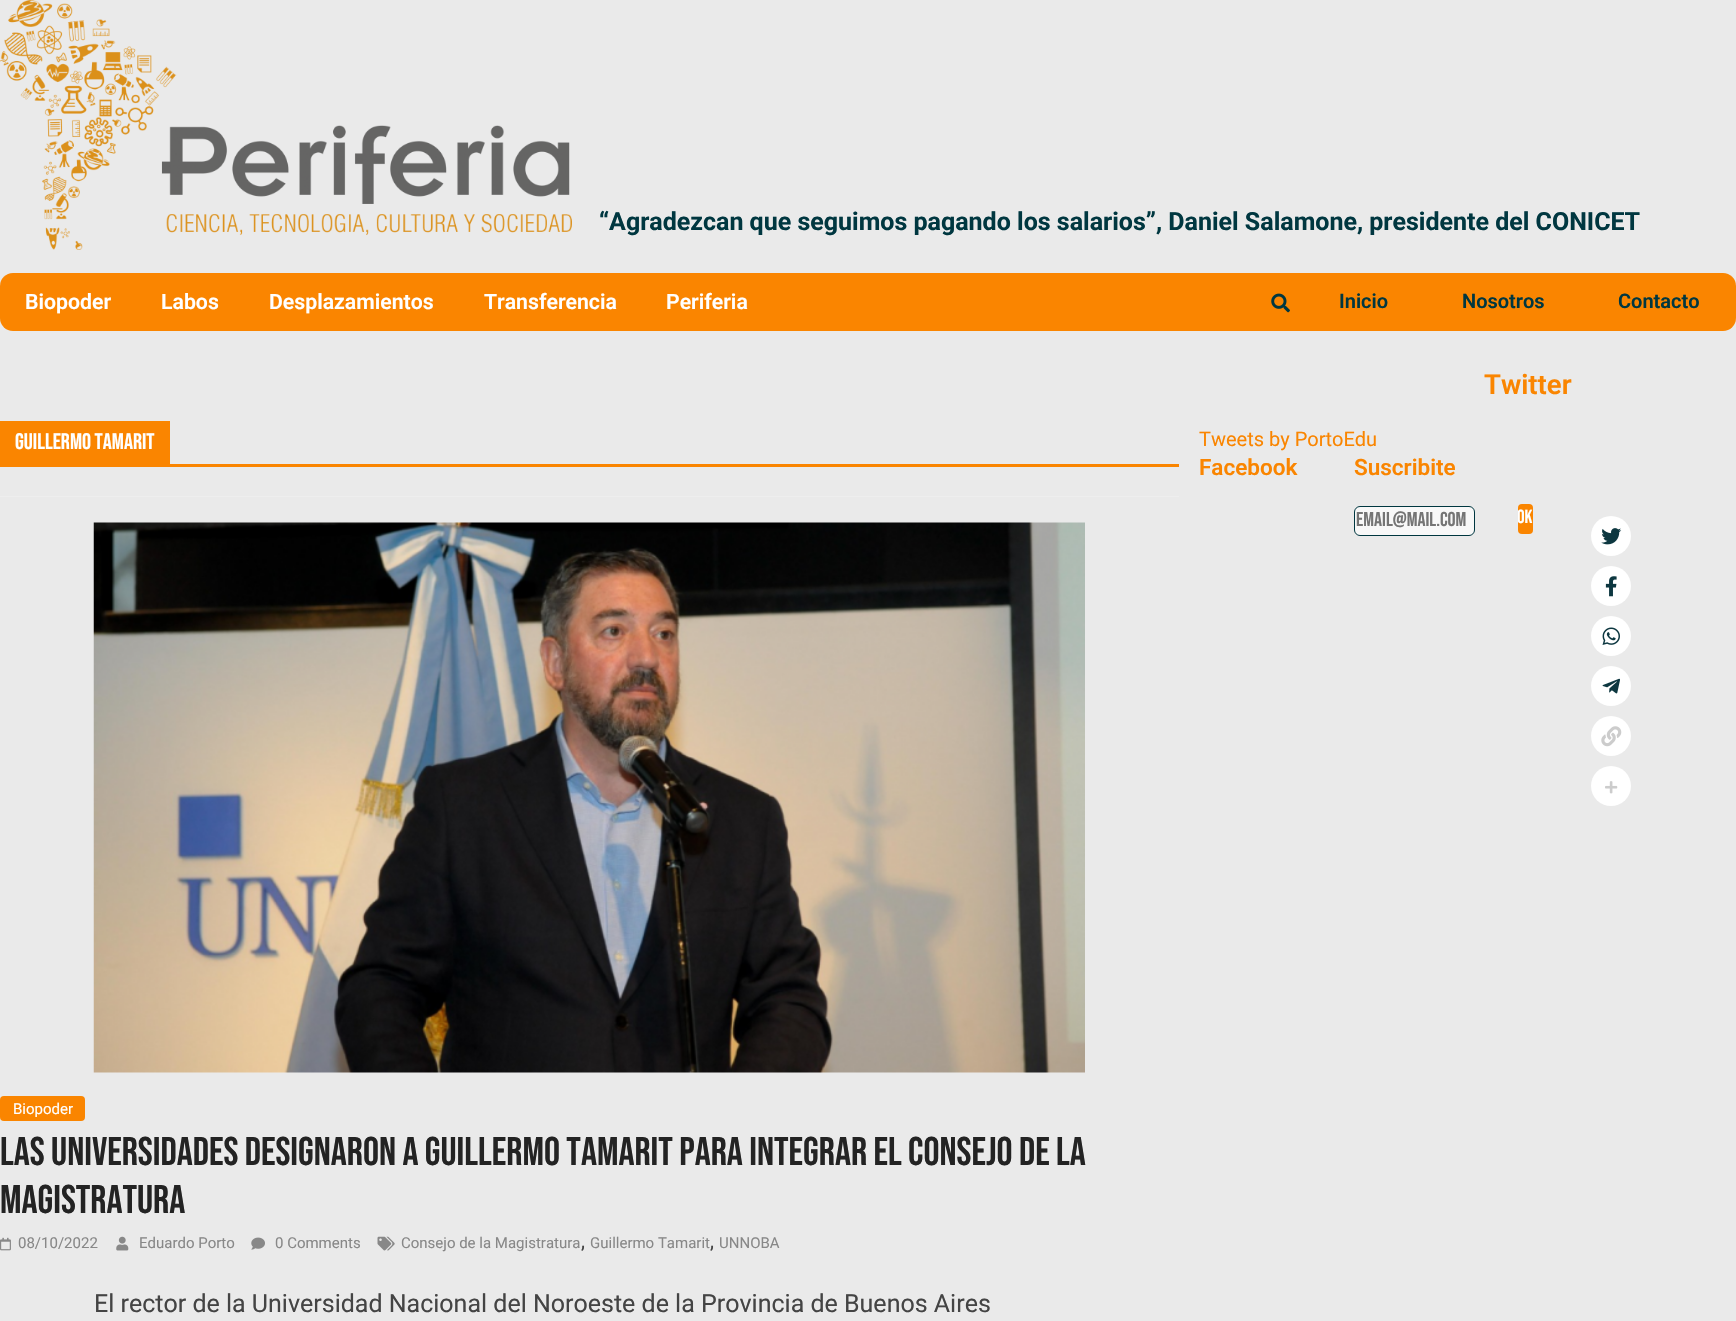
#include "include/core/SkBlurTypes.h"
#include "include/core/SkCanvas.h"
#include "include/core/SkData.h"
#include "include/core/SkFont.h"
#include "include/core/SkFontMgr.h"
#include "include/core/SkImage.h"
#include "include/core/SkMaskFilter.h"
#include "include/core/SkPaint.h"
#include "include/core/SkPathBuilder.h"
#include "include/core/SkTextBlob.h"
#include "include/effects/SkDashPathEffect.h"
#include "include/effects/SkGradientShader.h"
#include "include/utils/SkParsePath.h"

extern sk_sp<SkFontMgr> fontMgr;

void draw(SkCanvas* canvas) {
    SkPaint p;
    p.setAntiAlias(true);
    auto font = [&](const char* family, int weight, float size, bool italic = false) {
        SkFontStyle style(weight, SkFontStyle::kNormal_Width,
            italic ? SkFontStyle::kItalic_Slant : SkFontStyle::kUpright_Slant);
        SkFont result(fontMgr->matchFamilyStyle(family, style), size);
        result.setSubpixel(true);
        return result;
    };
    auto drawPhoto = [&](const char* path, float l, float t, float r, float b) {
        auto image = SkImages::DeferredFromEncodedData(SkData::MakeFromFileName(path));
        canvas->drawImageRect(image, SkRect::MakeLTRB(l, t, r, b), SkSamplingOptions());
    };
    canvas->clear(0xFFEAEAEA);
    drawPhoto("media/1.png", 0, 0, 572, 250);
    auto font1 = font("Roboto", 700, 25);
    p.setColor(0xFF003740);
    canvas->drawString("“Agradezcan que seguimos pagando los salarios”, Daniel Salamone, presidente del CONICET", 599, 230, font1, p);
    p.setColor(0xFFFA8500);
    canvas->drawRoundRect(SkRect::MakeLTRB(0, 273, 1736, 331), 13, 13, p);
    auto font2 = font("Roboto", 600, 21.25f);
    p.setColor(0xFFFFFFFF);
    {
        const struct { const char* s; float x, y; } items[] = {
            {"Biopoder", 25, 309},
            {"Labos", 161, 309},
            {"Desplazamientos", 269, 309},
            {"Transferencia", 484, 309},
            {"Periferia", 666, 309},
        };
        for (auto [s, x, y] : items) {
            canvas->drawString(s, x, y, font2, p);
        }
    }
    drawPhoto("media/2.png", 1271, 293, 1290, 313);
    auto font3 = font("Roboto", 600, 20);
    p.setColor(0xFF003740);
    {
        const struct { const char* s; float x, y; } items[] = {
            {"Inicio", 1339, 308},
            {"Nosotros", 1462, 308},
            {"Contacto", 1618, 308},
        };
        for (auto [s, x, y] : items) {
            canvas->drawString(s, x, y, font3, p);
        }
    }
    {
        const struct { float l, t, r, b; SkColor color; } items[] = {
            {0, 496, 1179, 497, 0xFFEEEEEE},
            {0, 464, 1179, 467, 0xFFFA8500},
            {0, 421, 170, 464, 0xFFFA8500},
        };
        for (auto [l, t, r, b, color] : items) {
            p.setColor(color);
            canvas->drawRect(SkRect::MakeLTRB(l, t, r, b), p);
        }
    }
    auto font4 = font("Bebas Neue", 400, 22.5f);
    p.setColor(0xFFFFFFFF);
    canvas->drawString("Guillermo Tamarit", 15, 449, font4, p);
    drawPhoto("media/3.png", 93, 522, 1085, 1073);
    p.setColor(0xFFFA8500);
    canvas->drawRoundRect(SkRect::MakeLTRB(0, 1096, 85, 1121), 4, 4, p);
    auto font5 = font("Roboto", 400, 15);
    p.setColor(0xFFFFFFFF);
    canvas->drawString("Biopoder", 13, 1114, font5, p);
    auto font6 = font("Bebas Neue", 400, 40);
    p.setColor(0xFF232323);
    canvas->drawString("Las universidades designaron a Guillermo Tamarit para integrar el Consejo de la", 0, 1165, font6, p);
    canvas->drawString("Magistratura", 0, 1213, font6, p);
    drawPhoto("media/4.png", 0, 1237, 11, 1251);
    p.setColor(0xFF888888);
    canvas->drawString("08/10/2022", 18, 1248, font5, p);
    drawPhoto("media/5.png", 116, 1236, 129, 1251);
    canvas->drawString("Eduardo Porto", 139, 1248, font5, p);
    drawPhoto("media/6.png", 251, 1237, 265, 1250);
    canvas->drawString("0 Comments", 275, 1248, font5, p);
    drawPhoto("media/7.png", 377, 1236, 395, 1251);
    canvas->drawString("Consejo de la Magistratura", 401, 1248, font5, p);
    auto font7 = font("Roboto", 400, 20);
    p.setColor(0xFF444444);
    canvas->drawString(",", 581, 1248, font7, p);
    p.setColor(0xFF888888);
    canvas->drawString("Guillermo Tamarit", 590, 1248, font5, p);
    p.setColor(0xFF444444);
    canvas->drawString(",", 710, 1248, font7, p);
    p.setColor(0xFF888888);
    canvas->drawString("UNNOBA", 719, 1248, font5, p);
    auto font8 = font("Roboto", 400, 25);
    p.setColor(0xFF444444);
    canvas->drawString("El rector de la Universidad Nacional del Noroeste de la Provincia de Buenos Aires", 94, 1312, font8, p);
    auto font9 = font("Roboto", 600, 27.5f);
    p.setColor(0xFFFA8500);
    canvas->drawString("Twitter", 1484, 394, font9, p);
    canvas->drawString("Tweets by PortoEdu", 1199, 446, font7, p);
    auto font10 = font("Roboto", 600, 22.5f);
    canvas->drawString("Facebook", 1199, 475, font10, p);
    canvas->drawString("Suscribite", 1354, 475, font10, p);
    p.setColor(0xFFF8F8F8);
    canvas->drawRoundRect(SkRect::MakeLTRB(1354.5f, 506.5f, 1474.5f, 535.5f), 5.5f, 5.5f, p);
    p.setStyle(SkPaint::kStroke_Style);
    p.setStrokeWidth(1);
    p.setColor(0xFF003740);
    canvas->drawRoundRect(SkRect::MakeLTRB(1354.5f, 506.5f, 1474.5f, 535.5f), 5.5f, 5.5f, p);
    auto font11 = font("Bebas Neue", 400, 20);
    p.setStyle(SkPaint::kFill_Style);
    p.setColor(0xFF757575);
    canvas->drawString("email@mail.com", 1356, 526, font11, p);
    p.setColor(0xFFFA8500);
    canvas->drawRoundRect(SkRect::MakeLTRB(1518, 504, 1533, 534), 4, 4, p);
    canvas->save();
    canvas->clipPath(SkPathBuilder().moveTo(1522, 504).lineTo(1529, 504).cubicTo(1531, 504, 1533, 506, 1533, 508).lineTo(1533, 530).cubicTo(1533, 532, 1531, 534, 1529, 534).lineTo(1522, 534).cubicTo(1520, 534, 1518, 532, 1518, 530).lineTo(1518, 508).cubicTo(1518, 506, 1520, 504, 1522, 504).close().detach(), true);
    auto font12 = font("Bebas Neue", 400, 19);
    p.setColor(0xFFFFFFFF);
    canvas->drawString("OK", 1517, 523, font12, p);
    canvas->restore();
    canvas->drawCircle(1611, 536, 20, p);
    drawPhoto("media/8.png", 1601, 528, 1622, 545);
    canvas->drawCircle(1611, 586, 20, p);
    drawPhoto("media/9.png", 1605, 576, 1617, 597);
    canvas->drawCircle(1611, 636, 20, p);
    drawPhoto("media/10.png", 1602, 627, 1620, 645);
    canvas->drawCircle(1611, 686, 20, p);
    drawPhoto("media/11.png", 1602, 678, 1620, 694);
    canvas->drawCircle(1611, 736, 20, p);
    drawPhoto("media/12.png", 1601, 726, 1622, 747);
    canvas->drawCircle(1611, 786, 20, p);
    drawPhoto("media/13.png", 1605, 781, 1618, 794);
}
